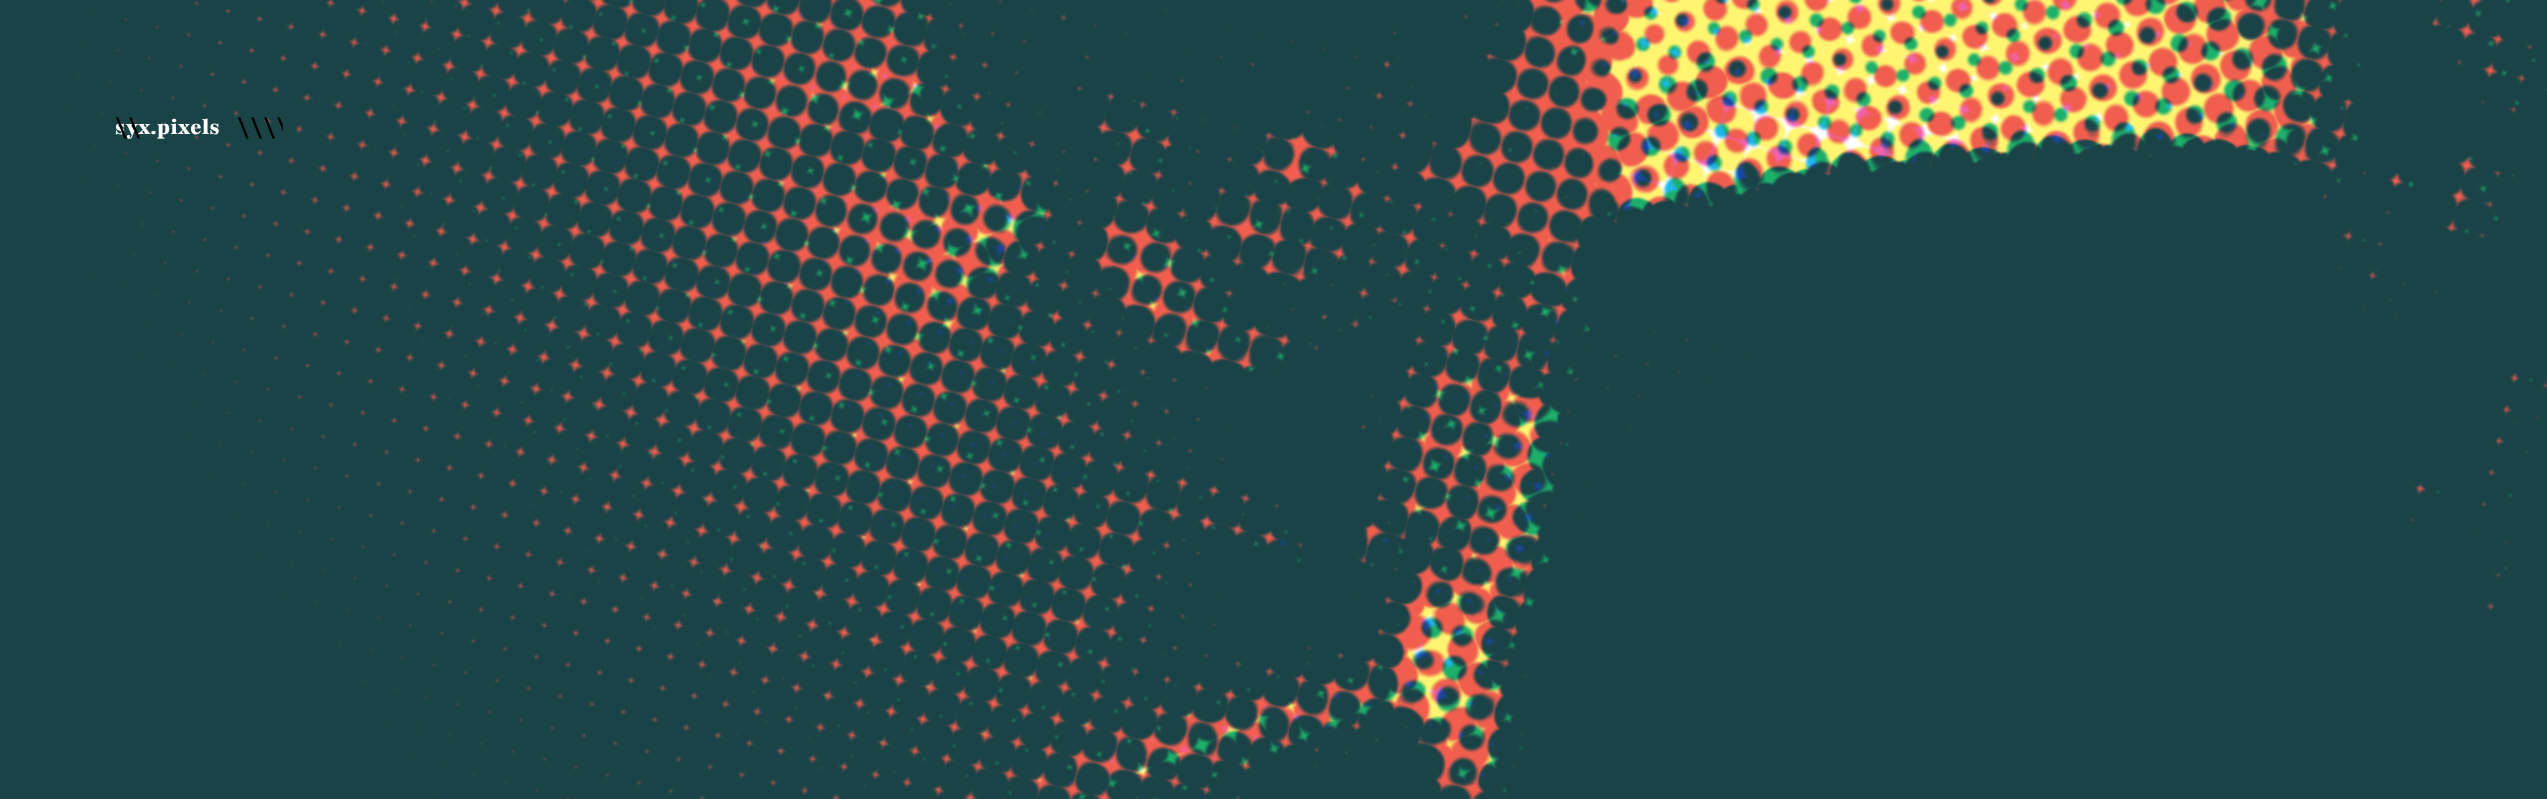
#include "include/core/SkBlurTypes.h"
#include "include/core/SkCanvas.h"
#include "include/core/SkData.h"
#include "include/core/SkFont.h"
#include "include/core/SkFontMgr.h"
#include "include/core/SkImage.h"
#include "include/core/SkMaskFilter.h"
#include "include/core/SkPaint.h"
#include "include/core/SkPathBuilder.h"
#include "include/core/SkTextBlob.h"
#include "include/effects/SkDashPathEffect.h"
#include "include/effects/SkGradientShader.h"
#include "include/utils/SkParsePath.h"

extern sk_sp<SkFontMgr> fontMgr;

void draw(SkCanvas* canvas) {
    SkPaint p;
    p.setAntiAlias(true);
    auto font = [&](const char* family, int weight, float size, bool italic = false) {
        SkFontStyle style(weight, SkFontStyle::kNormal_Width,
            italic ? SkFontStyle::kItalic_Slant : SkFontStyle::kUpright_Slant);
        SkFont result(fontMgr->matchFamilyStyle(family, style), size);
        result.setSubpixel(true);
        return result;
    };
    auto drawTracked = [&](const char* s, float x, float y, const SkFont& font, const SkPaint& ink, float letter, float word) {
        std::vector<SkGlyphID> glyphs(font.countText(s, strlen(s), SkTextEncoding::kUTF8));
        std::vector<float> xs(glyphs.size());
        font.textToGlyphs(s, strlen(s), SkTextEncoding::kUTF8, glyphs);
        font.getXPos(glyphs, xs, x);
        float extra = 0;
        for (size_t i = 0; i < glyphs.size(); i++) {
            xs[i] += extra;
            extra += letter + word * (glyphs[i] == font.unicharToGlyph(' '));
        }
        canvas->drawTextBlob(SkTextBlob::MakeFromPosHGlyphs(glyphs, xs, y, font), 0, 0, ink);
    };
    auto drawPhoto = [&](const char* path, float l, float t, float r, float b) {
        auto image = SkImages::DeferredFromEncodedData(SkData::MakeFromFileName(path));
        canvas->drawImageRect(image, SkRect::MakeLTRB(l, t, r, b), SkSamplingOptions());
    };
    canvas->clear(0xFFFFFFFF);
    drawPhoto("media/1.png", 0, 0, 2547, 799);
    auto font1 = font("Playfair", 900, 24);
    p.setColor(0xFFFFFFFF);
    drawTracked("syx.pixels", 115, 134, font1, p, 0.5f, 0);
    auto font2 = font("Playfair", 600, 35);
    p.setColor(0xFF000000);
    drawTracked("\\\\", 115, 138, font2, p, 0.5f, 0);
    canvas->save();
    canvas->clipRect(SkRect::MakeLTRB(115, 106, 283, 151));
    drawTracked("\\\\\\\\", 237, 138, font2, p, 0.5f, 0);
    canvas->restore();
}
